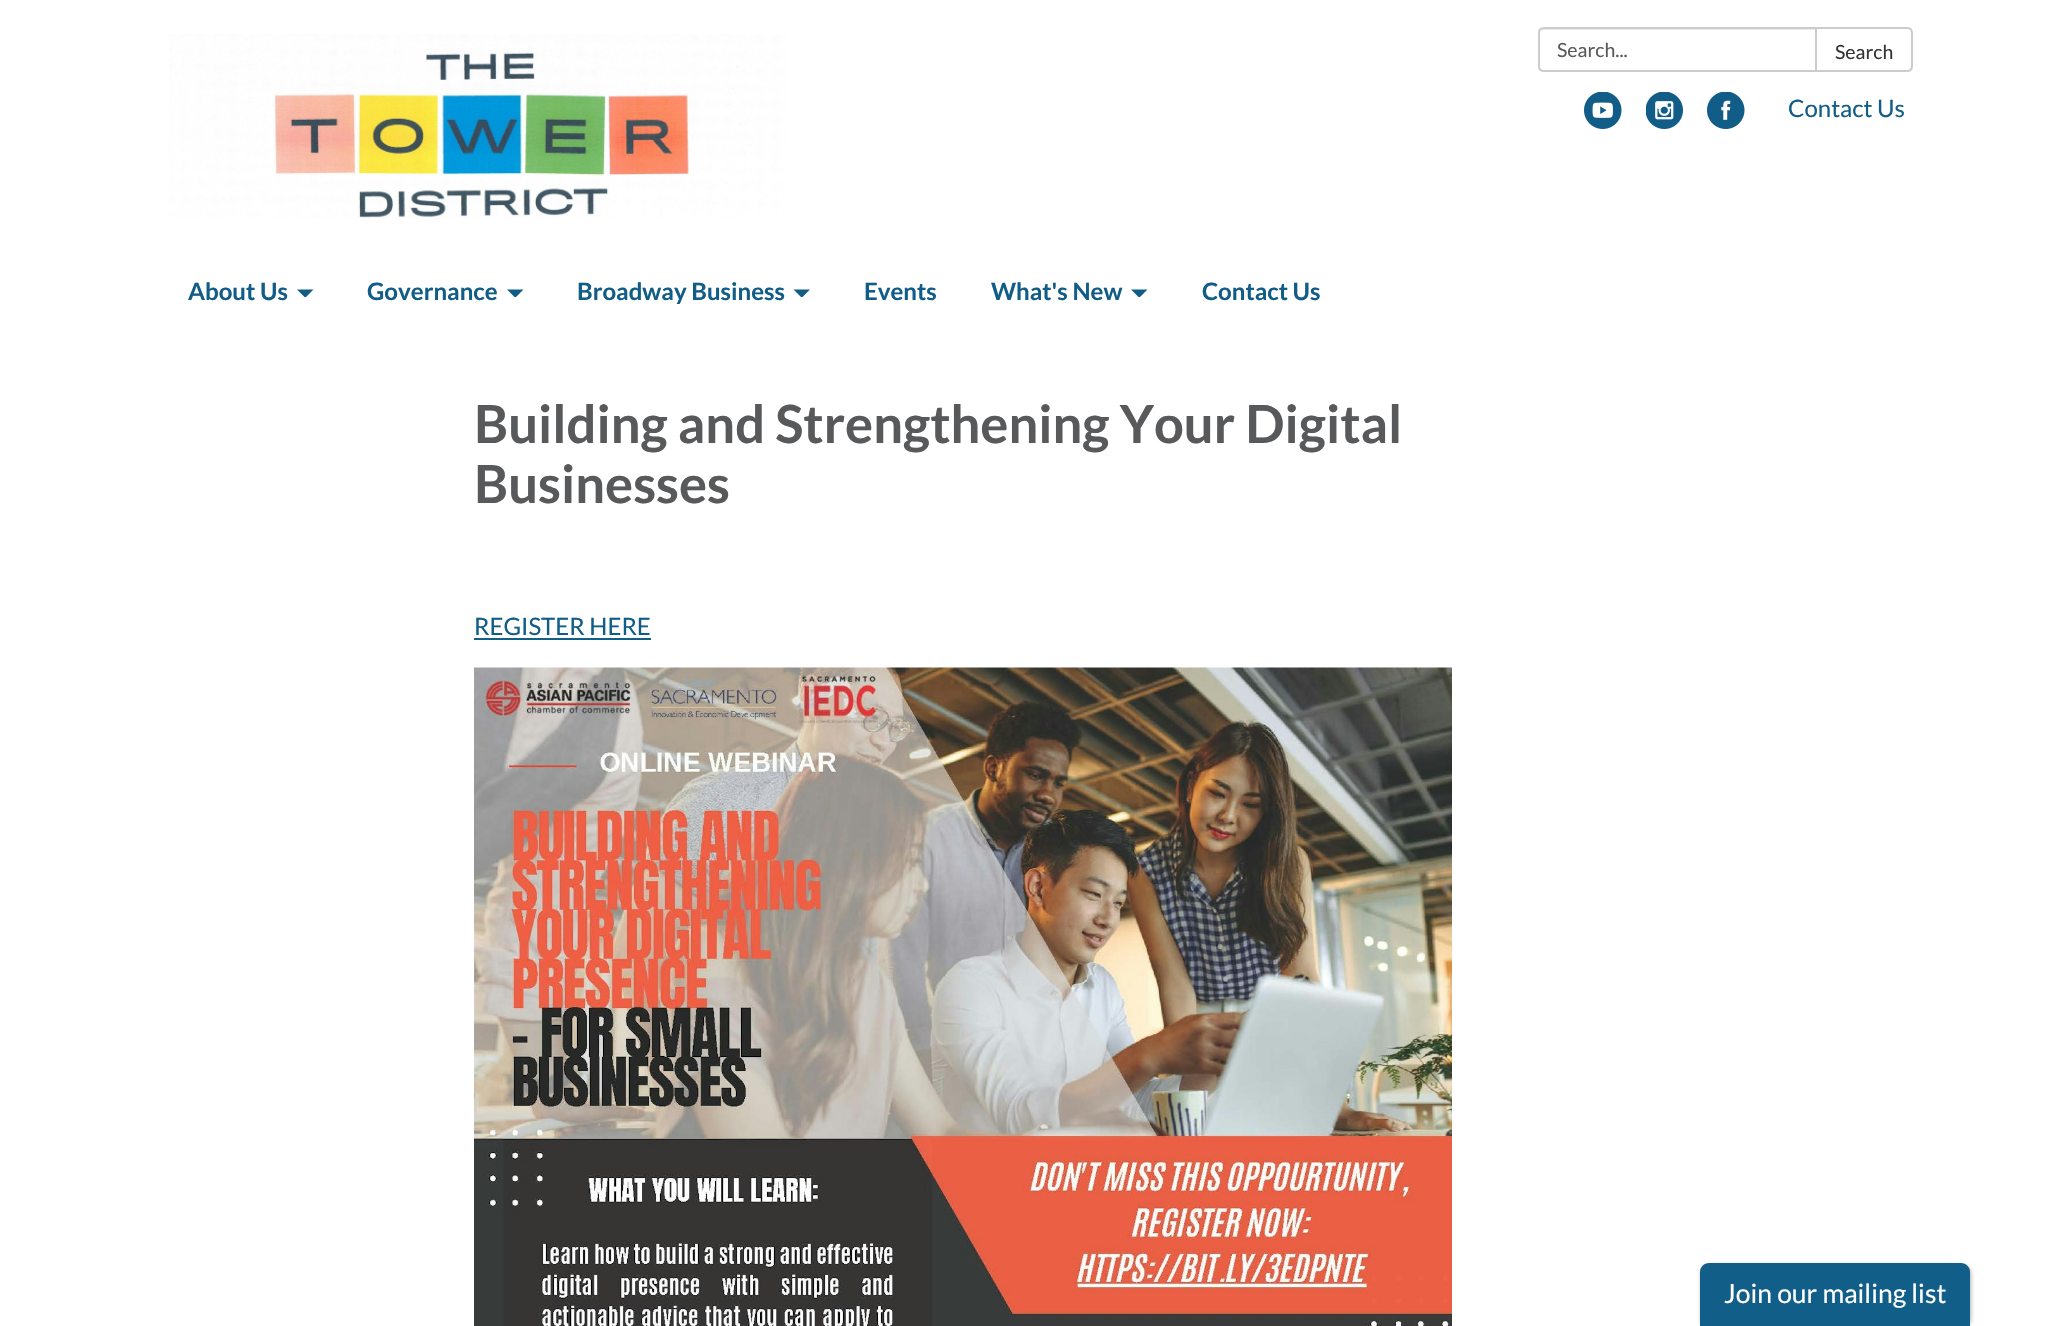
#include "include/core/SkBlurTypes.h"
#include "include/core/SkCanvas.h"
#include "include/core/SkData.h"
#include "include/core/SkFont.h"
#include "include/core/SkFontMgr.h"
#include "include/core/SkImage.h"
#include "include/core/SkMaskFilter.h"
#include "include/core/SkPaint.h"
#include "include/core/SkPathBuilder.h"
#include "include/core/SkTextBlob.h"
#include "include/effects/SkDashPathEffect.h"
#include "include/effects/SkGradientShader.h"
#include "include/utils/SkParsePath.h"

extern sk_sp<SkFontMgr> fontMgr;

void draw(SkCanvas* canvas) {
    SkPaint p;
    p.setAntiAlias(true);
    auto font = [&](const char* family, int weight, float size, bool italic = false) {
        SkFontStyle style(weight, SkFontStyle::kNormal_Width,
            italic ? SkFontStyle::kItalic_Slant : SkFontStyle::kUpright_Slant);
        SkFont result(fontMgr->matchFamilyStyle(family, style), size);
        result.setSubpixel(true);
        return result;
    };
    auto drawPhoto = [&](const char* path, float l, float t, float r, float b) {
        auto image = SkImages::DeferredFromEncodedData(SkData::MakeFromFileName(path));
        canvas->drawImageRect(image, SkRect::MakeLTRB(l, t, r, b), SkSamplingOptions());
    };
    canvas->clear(0xFFFFFFFF);
    drawPhoto("media/1.png", 169, 34, 786, 218);
    p.setColor(0xFFECECEC);
    canvas->drawPath(SkPathBuilder().moveTo(1544, 30).lineTo(1815, 30).lineTo(1815, 29).lineTo(1544, 29).cubicTo(1541, 29, 1539, 31, 1539, 34).cubicTo(1539, 32, 1541, 30, 1544, 30).close().detach(), p);
    p.setStyle(SkPaint::kStroke_Style);
    p.setStrokeWidth(2);
    p.setColor(0xFFCCCCCC);
    canvas->drawPath(SkPathBuilder().moveTo(1544, 28).lineTo(1816, 28).lineTo(1816, 71).lineTo(1544, 71).cubicTo(1541, 71, 1539, 69, 1539, 66).lineTo(1539, 33).cubicTo(1539, 30, 1541, 28, 1544, 28).close().detach(), p);
    auto font1 = font("Lato", 400, 19.5f);
    p.setStyle(SkPaint::kFill_Style);
    p.setColor(0xFF58595B);
    canvas->drawString("Search...", 1557, 57, font1, p);
    p.setColor(0xFFFFFFFF);
    canvas->drawPath(SkPathBuilder().moveTo(1816, 28).lineTo(1907, 28).cubicTo(1910, 28, 1912, 30, 1912, 33).lineTo(1912, 66).cubicTo(1912, 69, 1910, 71, 1907, 71).lineTo(1816, 71).close().detach(), p);
    p.setStyle(SkPaint::kStroke_Style);
    p.setColor(0xFFCCCCCC);
    canvas->drawPath(SkPathBuilder().moveTo(1816, 28).lineTo(1907, 28).cubicTo(1910, 28, 1912, 30, 1912, 33).lineTo(1912, 66).cubicTo(1912, 69, 1910, 71, 1907, 71).lineTo(1816, 71).close().detach(), p);
    p.setStyle(SkPaint::kFill_Style);
    p.setColor(0xFF333333);
    canvas->drawString("Search", 1835, 59, font1, p);
    drawPhoto("media/2.png", 1584, 92, 1622, 129);
    drawPhoto("media/3.png", 1646, 92, 1683, 129);
    drawPhoto("media/4.png", 1707, 92, 1745, 129);
    auto font2 = font("Lato", 400, 24);
    p.setColor(0xFF115D88);
    canvas->drawString("Contact Us", 1788, 117, font2, p);
    auto font3 = font("Lato", 700, 24);
    canvas->drawString("About Us", 188, 300, font3, p);
    canvas->drawPath(SkPathBuilder().moveTo(297, 289.5f).lineTo(313.5f, 289.5f).lineTo(306, 297).lineTo(304.5f, 297).close().detach(), p);
    canvas->drawString("Governance", 367, 300, font3, p);
    canvas->drawPath(SkPathBuilder().moveTo(507, 289.5f).lineTo(523.5f, 289.5f).lineTo(516, 297).lineTo(514.5f, 297).close().detach(), p);
    canvas->drawString("Broadway Business", 577, 300, font3, p);
    canvas->drawPath(SkPathBuilder().moveTo(793.5f, 289.5f).lineTo(810, 289.5f).lineTo(802.5f, 297).lineTo(801, 297).close().detach(), p);
    canvas->drawString("Events", 864, 300, font3, p);
    canvas->drawString("What's New", 991, 300, font3, p);
    canvas->drawPath(SkPathBuilder().moveTo(1131, 289.5f).lineTo(1147.5f, 289.5f).lineTo(1140, 297).lineTo(1138.5f, 297).close().detach(), p);
    canvas->drawString("Contact Us", 1202, 300, font3, p);
    auto font4 = font("Lato", 700, 52.5f);
    p.setColor(0xFF58595B);
    canvas->drawString("Building and Strengthening Your Digital", 474, 443, font4, p);
    canvas->drawString("Businesses", 474, 503, font4, p);
    p.setColor(0xFF115D88);
    canvas->drawString("REGISTER HERE", 474, 635, font2, p);
    p.setColor(0xFF115E88);
    canvas->drawRect(SkRect::MakeLTRB(474, 638, 651, 640), p);
    drawPhoto("media/5.png", 474, 667, 1452, 1326);
    p.setColor(0x4D000000);
    p.setMaskFilter(SkMaskFilter::MakeBlur(kNormal_SkBlurStyle, 2));
    canvas->drawRoundRect(SkRect::MakeLTRB(1701, 1265, 1971, 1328), 9, 9, p);
    p.setMaskFilter(nullptr);
    p.setColor(0xFF115E88);
    canvas->drawPath(SkPathBuilder().moveTo(1709, 1263).lineTo(1961, 1263).cubicTo(1966, 1263, 1970, 1267, 1970, 1272).lineTo(1970, 1326).lineTo(1700, 1326).lineTo(1700, 1272).cubicTo(1700, 1267, 1704, 1263, 1709, 1263).close().detach(), p);
    auto font5 = font("Lato", 400, 26.5f);
    p.setColor(0xFFFFFFFF);
    canvas->drawString("Join our mailing list", 1724, 1303, font5, p);
}
